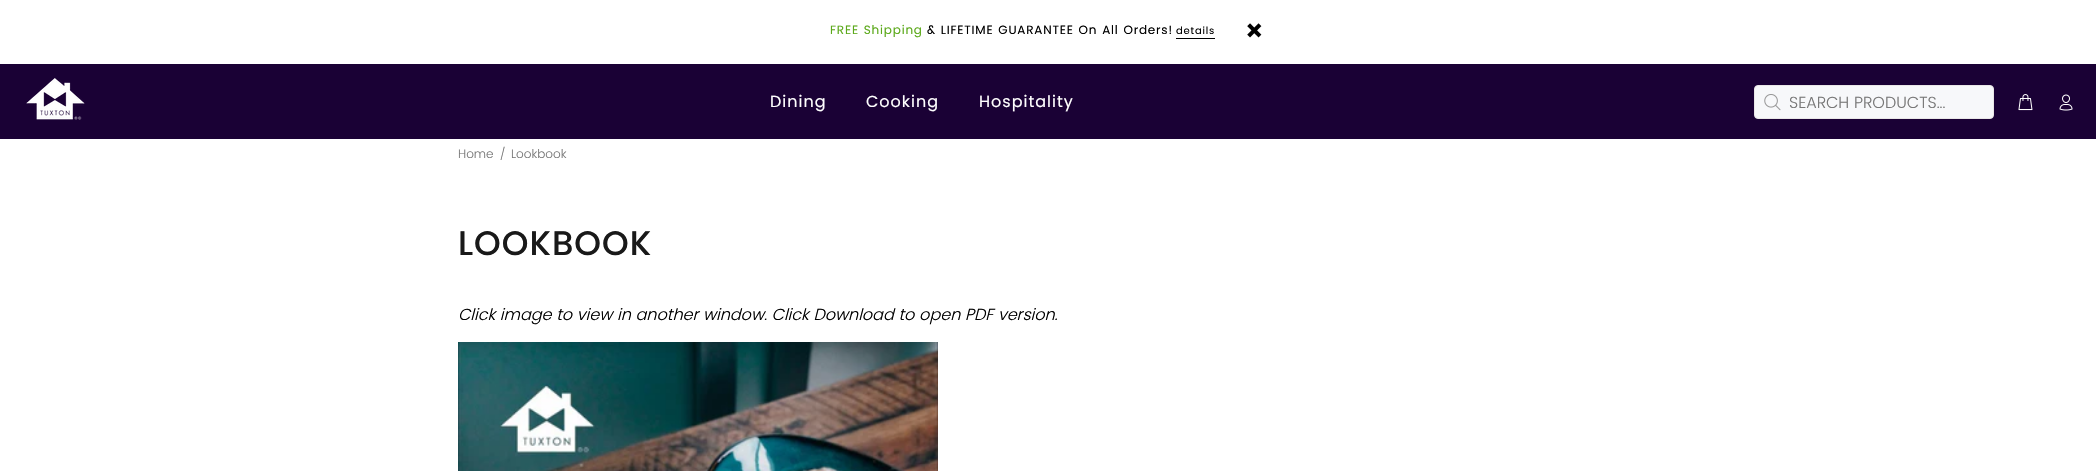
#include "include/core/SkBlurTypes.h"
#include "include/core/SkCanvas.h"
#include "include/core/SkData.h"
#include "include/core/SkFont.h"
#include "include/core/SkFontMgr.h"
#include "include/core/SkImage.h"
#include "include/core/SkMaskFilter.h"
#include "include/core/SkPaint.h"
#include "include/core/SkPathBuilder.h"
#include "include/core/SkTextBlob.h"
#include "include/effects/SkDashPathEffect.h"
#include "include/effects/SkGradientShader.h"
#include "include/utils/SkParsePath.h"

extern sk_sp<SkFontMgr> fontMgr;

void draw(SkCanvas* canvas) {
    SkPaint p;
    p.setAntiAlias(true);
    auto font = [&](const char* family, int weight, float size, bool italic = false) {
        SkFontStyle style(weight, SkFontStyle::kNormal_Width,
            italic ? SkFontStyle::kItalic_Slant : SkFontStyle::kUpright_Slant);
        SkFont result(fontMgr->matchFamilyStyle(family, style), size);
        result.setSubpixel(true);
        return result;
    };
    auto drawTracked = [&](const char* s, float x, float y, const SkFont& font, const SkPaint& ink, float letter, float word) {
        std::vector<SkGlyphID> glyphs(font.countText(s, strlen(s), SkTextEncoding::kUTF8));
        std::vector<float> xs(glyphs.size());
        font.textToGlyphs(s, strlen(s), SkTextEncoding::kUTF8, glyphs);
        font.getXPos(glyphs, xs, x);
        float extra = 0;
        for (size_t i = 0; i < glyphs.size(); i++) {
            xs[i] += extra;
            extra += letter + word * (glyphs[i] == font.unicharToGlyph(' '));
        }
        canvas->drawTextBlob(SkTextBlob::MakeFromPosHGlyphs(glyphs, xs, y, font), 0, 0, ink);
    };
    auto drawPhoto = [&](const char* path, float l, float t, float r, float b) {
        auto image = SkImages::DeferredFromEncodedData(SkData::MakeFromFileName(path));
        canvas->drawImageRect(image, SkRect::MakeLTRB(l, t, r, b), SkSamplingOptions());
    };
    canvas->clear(0xFFFFFFFF);
    p.setColor(0xFF1A0135);
    canvas->drawRect(SkRect::MakeLTRB(0, 64, 2096, 139), p);
    auto font1 = font("Poppins", 400, 12);
    p.setColor(0xFF5CA91B);
    drawTracked("FREE Shipping", 830, 34, font1, p, 0.8f, 0.5f);
    p.setColor(0xFF000000);
    drawTracked("& LIFETIME GUARANTEE On All Orders!", 927, 34, font1, p, 0.8f, 0.5f);
    auto font2 = font("Poppins", 400, 10);
    drawTracked("details", 1176, 34, font2, p, 0.8f, 0);
    canvas->drawRect(SkRect::MakeLTRB(1176, 38, 1215, 39), p);
    drawPhoto("media/1.png", 1247, 23, 1262, 38);
    drawPhoto("media/2.png", 26, 78, 85, 120);
    auto font3 = font("Poppins", 400, 16);
    p.setColor(0xFFFFFFFF);
    {
        const struct { const char* s; float x, y; } items[] = {
            {"Dining", 770, 107},
            {"Cooking", 866, 107},
            {"Hospitality", 979, 107},
        };
        for (auto [s, x, y] : items) {
            drawTracked(s, x, y, font3, p, 1, 0);
        }
    }
    p.setColor(0xFFF7F8FA);
    canvas->drawRoundRect(SkRect::MakeLTRB(1754.5f, 85.5f, 1993.5f, 118.5f), 3.5f, 3.5f, p);
    p.setStyle(SkPaint::kStroke_Style);
    p.setStrokeWidth(1);
    p.setColor(0xFFE9E7E7);
    canvas->drawRoundRect(SkRect::MakeLTRB(1754.5f, 85.5f, 1993.5f, 118.5f), 3.5f, 3.5f, p);
    drawPhoto("media/3.png", 1764, 94, 1781, 111);
    auto font4 = font("Poppins", 300, 16);
    p.setStyle(SkPaint::kFill_Style);
    p.setColor(0xFF777777);
    canvas->drawString("SEARCH PRODUCTS...", 1789, 108, font4, p);
    drawPhoto("media/4.png", 2018, 94, 2033, 111);
    drawPhoto("media/5.png", 2059, 94, 2073, 111);
    auto font5 = font("Poppins", 300, 12);
    {
        const struct { const char* s; float x, y; } items[] = {
            {"Home", 458, 158},
            {"/", 500, 158},
            {"Lookbook", 511, 158},
        };
        for (auto [s, x, y] : items) {
            canvas->drawString(s, x, y, font5, p);
        }
    }
    auto font6 = font("Poppins", 500, 34);
    p.setColor(0xFF191919);
    drawTracked("LOOKBOOK", 458, 255, font6, p, 1, 0);
    auto font7 = font("Poppins", 300, 16, true);
    p.setColor(0xFF000000);
    canvas->drawString("Click image to view in another window. Click Download to open PDF version.", 458, 320, font7, p);
    drawPhoto("media/6.png", 458, 342, 938, 471);
}
